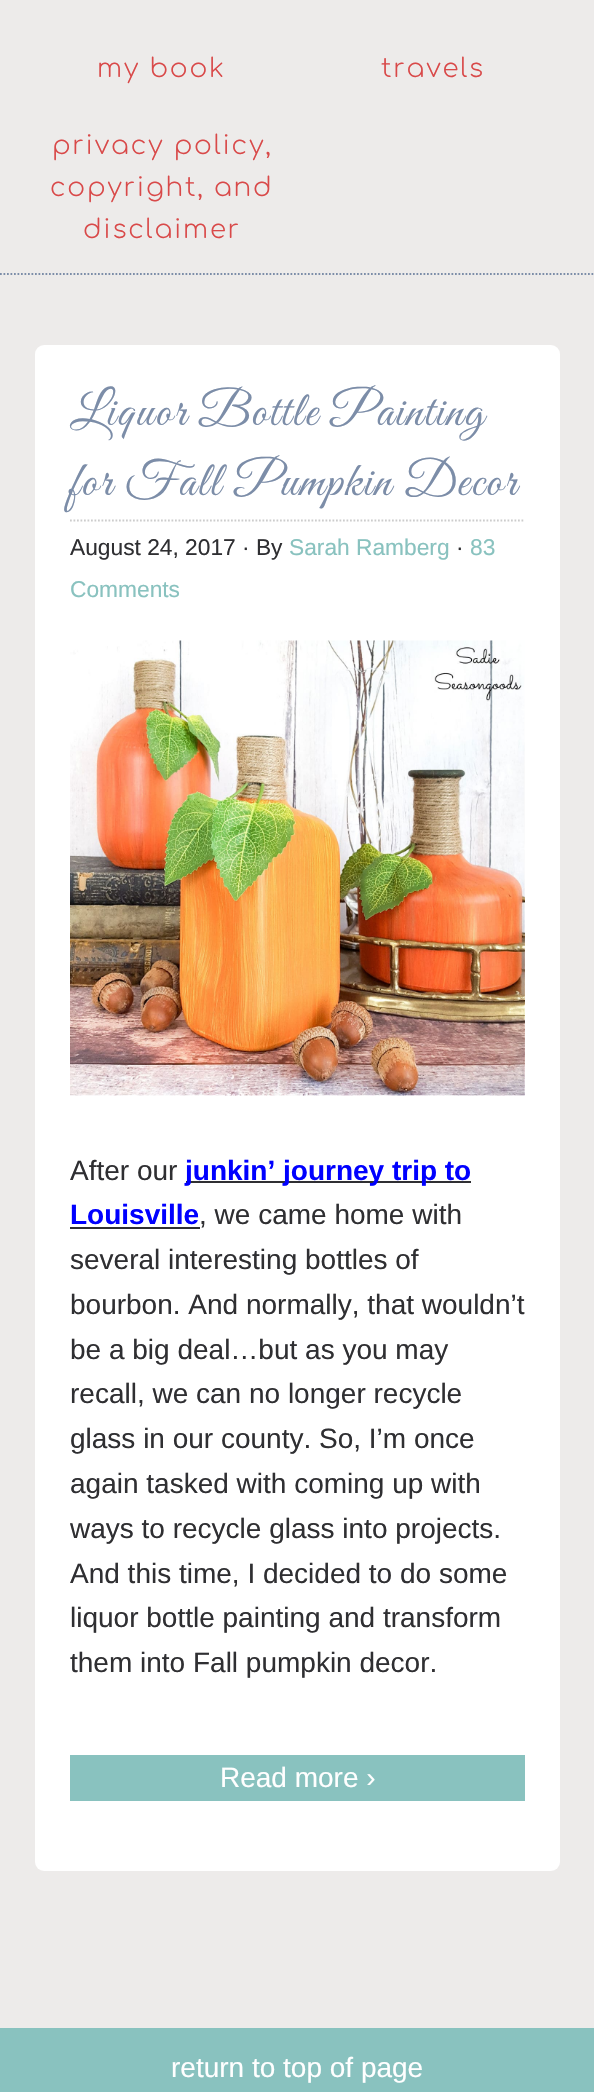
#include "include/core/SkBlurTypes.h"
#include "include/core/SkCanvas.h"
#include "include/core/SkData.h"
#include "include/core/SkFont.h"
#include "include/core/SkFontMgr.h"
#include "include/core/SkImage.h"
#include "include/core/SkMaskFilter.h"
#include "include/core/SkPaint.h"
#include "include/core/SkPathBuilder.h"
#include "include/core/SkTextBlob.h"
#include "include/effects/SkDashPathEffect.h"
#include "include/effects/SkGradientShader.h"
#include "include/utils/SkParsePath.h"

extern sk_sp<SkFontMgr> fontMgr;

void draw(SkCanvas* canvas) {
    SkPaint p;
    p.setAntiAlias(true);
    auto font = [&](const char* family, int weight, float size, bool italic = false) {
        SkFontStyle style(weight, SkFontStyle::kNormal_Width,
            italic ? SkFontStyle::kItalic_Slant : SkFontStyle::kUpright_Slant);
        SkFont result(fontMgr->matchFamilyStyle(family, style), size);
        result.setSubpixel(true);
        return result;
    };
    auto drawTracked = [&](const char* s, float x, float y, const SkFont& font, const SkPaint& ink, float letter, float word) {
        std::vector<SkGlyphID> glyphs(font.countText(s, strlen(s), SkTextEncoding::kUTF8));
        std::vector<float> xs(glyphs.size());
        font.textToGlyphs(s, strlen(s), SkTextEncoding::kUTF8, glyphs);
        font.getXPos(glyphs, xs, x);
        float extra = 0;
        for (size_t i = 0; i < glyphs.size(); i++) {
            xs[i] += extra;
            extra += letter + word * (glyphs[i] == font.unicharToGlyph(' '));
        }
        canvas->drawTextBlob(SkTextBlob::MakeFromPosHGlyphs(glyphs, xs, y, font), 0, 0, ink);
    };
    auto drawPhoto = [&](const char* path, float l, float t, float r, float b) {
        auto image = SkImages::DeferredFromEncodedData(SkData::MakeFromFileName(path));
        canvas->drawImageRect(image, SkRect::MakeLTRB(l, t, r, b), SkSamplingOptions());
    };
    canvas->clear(0xFFEDEBEA);
    p.setStyle(SkPaint::kStroke_Style);
    p.setStrokeWidth(1.8f);
    p.setColor(0xFF7C8DA8);
    p.setPathEffect(SkDashPathEffect::Make({{1.75f, 1.75f}}, 0));
    canvas->drawPath(SkPathBuilder().moveTo(0, 274).lineTo(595, 274).detach(), p);
    p.setPathEffect(nullptr);
    auto font1 = font("Comfortaa", 300, 26.25f);
    p.setStyle(SkPaint::kFill_Style);
    p.setColor(0xFFD94949);
    {
        const struct { const char* s; float x, y; } items[] = {
            {"my book", 97, 77},
            {"travels", 381, 77},
            {"privacy policy,", 52, 154},
            {"copyright, and", 50, 196},
            {"disclaimer", 83, 238},
        };
        for (auto [s, x, y] : items) {
            drawTracked(s, x, y, font1, p, 1.75f, 0);
        }
    }
    p.setColor(0xFFFFFFFF);
    canvas->drawRoundRect(SkRect::MakeLTRB(35, 345, 560, 1871), 9, 9, p);
    p.setStyle(SkPaint::kStroke_Style);
    p.setColor(0xFFCCCCCC);
    p.setPathEffect(SkDashPathEffect::Make({{1.75f, 1.75f}}, 0));
    canvas->drawPath(SkPathBuilder().moveTo(70, 520.5f).lineTo(525, 520.5f).detach(), p);
    p.setPathEffect(nullptr);
    auto font2 = font("Great Vibes", 400, 49);
    p.setStyle(SkPaint::kFill_Style);
    p.setColor(0xFF7C8DA8);
    drawTracked("Liquor Bottle Painting", 70, 425, font2, p, 1.75f, 0);
    drawTracked("for Fall Pumpkin Decor", 70, 495, font2, p, 1.75f, 1);
    auto font3 = font("Liberation Sans", 400, 22.75f);
    p.setColor(0xFF2F2F32);
    canvas->drawString("August 24, 2017 · By", 70, 555, font3, p);
    p.setColor(0xFF89C2BF);
    canvas->drawString("Sarah Ramberg", 289, 555, font3, p);
    p.setColor(0xFF2F2F32);
    canvas->drawString("·", 456, 555, font3, p);
    p.setColor(0xFF89C2BF);
    canvas->drawString("83", 470, 555, font3, p);
    canvas->drawString("Comments", 70, 597, font3, p);
    drawPhoto("media/1.png", 70, 640, 525, 1096);
    auto font4 = font("Liberation Sans", 400, 28);
    p.setColor(0xFF2F2F32);
    canvas->drawString("After our", 70, 1180, font4, p);
    canvas->drawRect(SkRect::MakeLTRB(186, 1181, 471, 1183), p);
    auto font5 = font("Liberation Sans", 700, 28);
    p.setColor(0xFF0000FF);
    canvas->drawString("junkin’ journey trip to", 185, 1180, font5, p);
    canvas->drawString("Louisville", 70, 1224, font5, p);
    p.setColor(0xFF2F2F32);
    canvas->drawRect(SkRect::MakeLTRB(70, 1227, 200, 1229), p);
    {
        const struct { const char* s; float x, y; } items[] = {
            {", we came home with", 199, 1224},
            {"several interesting bottles of", 70, 1269},
            {"bourbon. And normally, that wouldn’t", 70, 1314},
            {"be a big deal…but as you may", 70, 1359},
            {"recall, we can no longer recycle", 70, 1403},
            {"glass in our county. So, I’m once", 70, 1448},
            {"again tasked with coming up with", 70, 1493},
            {"ways to recycle glass into projects.", 70, 1538},
            {"And this time, I decided to do some", 70, 1583},
            {"liquor bottle painting and transform", 70, 1627},
            {"them into Fall pumpkin decor.", 70, 1672},
        };
        for (auto [s, x, y] : items) {
            canvas->drawString(s, x, y, font4, p);
        }
    }
    p.setColor(0xFF89C2BF);
    canvas->drawRect(SkRect::MakeLTRB(70, 1755, 525, 1801), p);
    p.setColor(0xFFFFFFFF);
    canvas->drawString("Read more ›", 220, 1787, font4, p);
    p.setColor(0xFF89C2BF);
    canvas->drawRect(SkRect::MakeLTRB(0, 2028, 594, 2092), p);
    p.setColor(0xFFFFFFFF);
    canvas->drawString("return to top of page", 171, 2077, font4, p);
}
